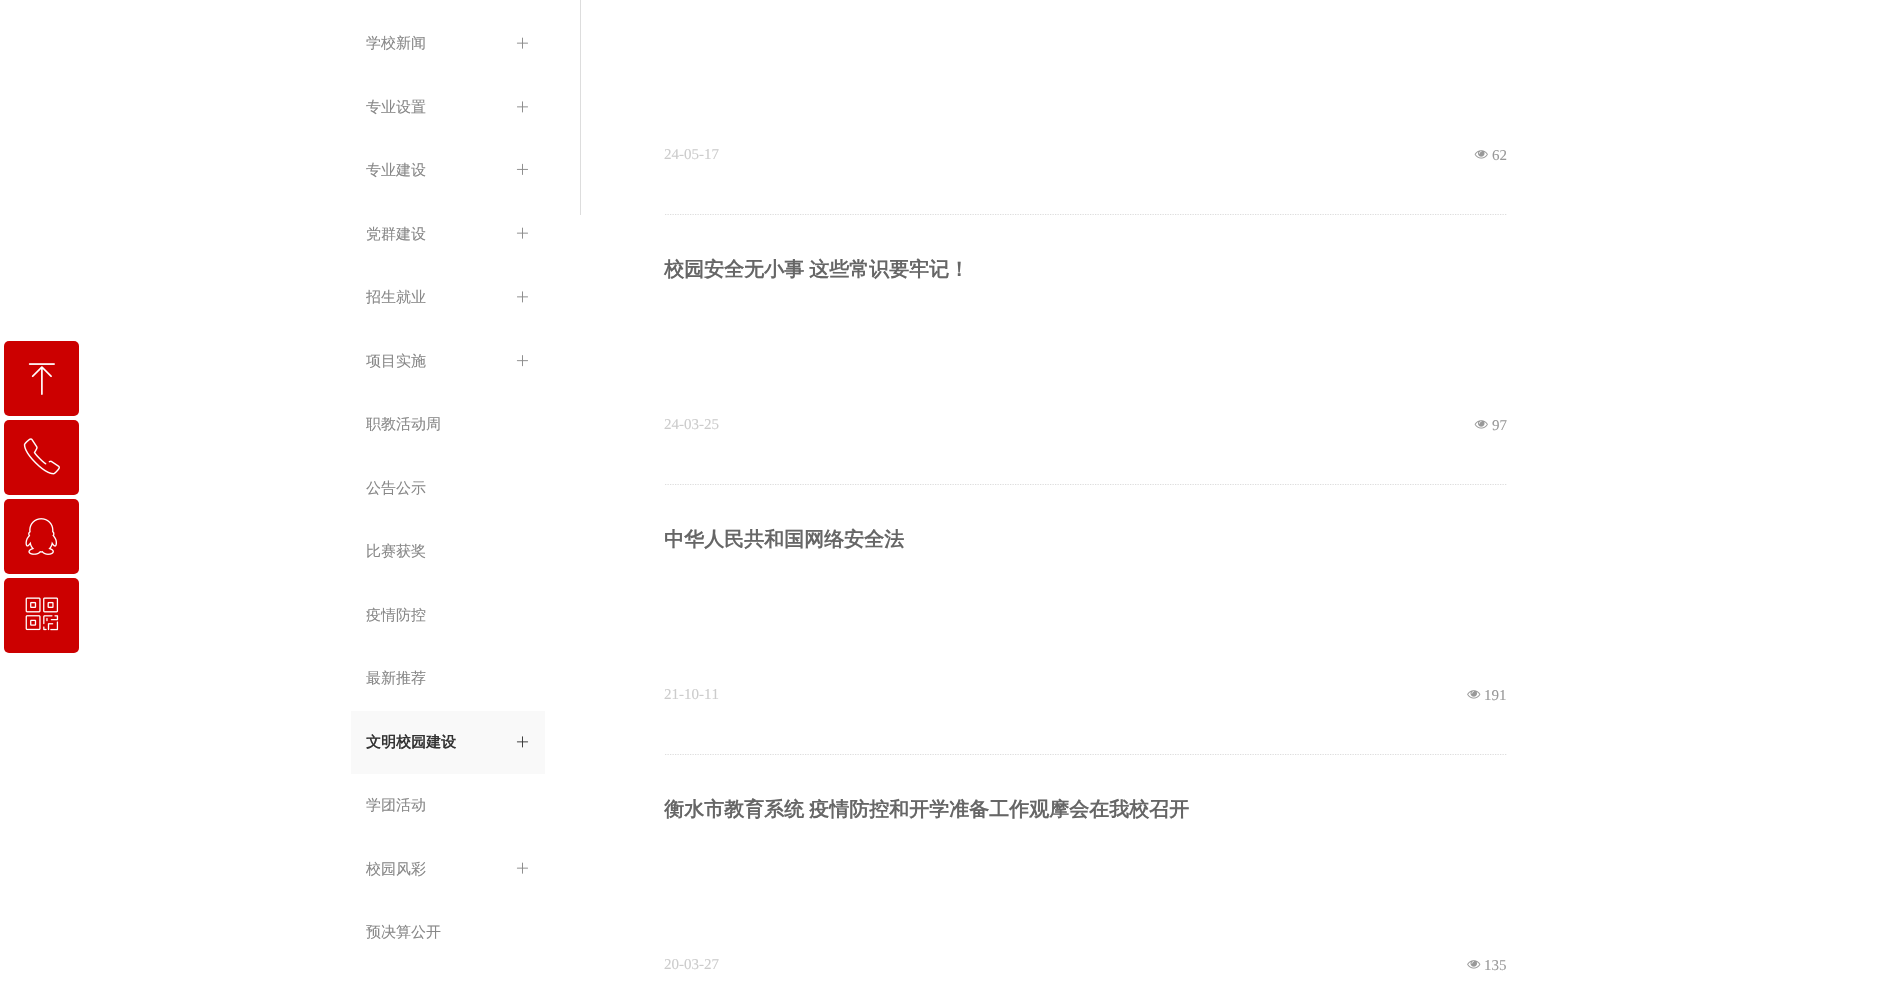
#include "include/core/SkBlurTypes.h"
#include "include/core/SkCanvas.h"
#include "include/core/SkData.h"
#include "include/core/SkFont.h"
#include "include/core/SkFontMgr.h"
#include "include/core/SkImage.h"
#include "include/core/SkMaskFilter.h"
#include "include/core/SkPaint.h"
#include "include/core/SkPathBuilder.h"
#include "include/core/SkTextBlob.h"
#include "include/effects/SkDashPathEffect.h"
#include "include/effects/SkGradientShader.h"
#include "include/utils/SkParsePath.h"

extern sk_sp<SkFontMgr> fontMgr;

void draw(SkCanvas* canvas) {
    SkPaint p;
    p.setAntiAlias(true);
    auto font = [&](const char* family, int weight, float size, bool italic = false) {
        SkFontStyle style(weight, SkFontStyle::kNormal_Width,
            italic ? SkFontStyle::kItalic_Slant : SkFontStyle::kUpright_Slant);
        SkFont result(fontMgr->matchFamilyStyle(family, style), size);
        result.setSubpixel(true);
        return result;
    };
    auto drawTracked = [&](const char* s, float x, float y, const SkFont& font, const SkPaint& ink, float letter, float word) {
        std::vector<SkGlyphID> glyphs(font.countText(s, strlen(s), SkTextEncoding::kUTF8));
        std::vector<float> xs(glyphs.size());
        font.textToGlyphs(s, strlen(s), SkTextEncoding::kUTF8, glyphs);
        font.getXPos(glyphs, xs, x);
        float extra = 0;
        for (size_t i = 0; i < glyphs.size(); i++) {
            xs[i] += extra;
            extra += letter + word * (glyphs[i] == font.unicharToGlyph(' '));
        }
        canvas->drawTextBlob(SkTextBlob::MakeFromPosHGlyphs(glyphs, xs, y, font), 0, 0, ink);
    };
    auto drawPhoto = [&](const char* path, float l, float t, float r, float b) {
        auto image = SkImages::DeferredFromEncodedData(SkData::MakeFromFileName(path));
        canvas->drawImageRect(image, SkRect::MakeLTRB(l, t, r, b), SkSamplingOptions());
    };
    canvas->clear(0xFFFFFFFF);
    p.setColor(0xFFCC0000);
    canvas->drawRoundRect(SkRect::MakeLTRB(4, 341, 79, 416), 5, 5, p);
    drawPhoto("media/1.png", 28, 363, 55, 395);
    canvas->drawRoundRect(SkRect::MakeLTRB(4, 420, 79, 495), 5, 5, p);
    drawPhoto("media/2.png", 23, 438, 60, 475);
    canvas->drawRoundRect(SkRect::MakeLTRB(4, 499, 79, 574), 5, 5, p);
    drawPhoto("media/3.png", 25, 518, 57, 555);
    canvas->drawRoundRect(SkRect::MakeLTRB(4, 578, 79, 653), 5, 5, p);
    drawPhoto("media/4.png", 25, 597, 59, 631);
    auto font1 = font("WenQuanYi Zen Hei", 500, 15);
    p.setColor(0xFF888888);
    canvas->drawString("学校新闻", 366, 48, font1, p);
    drawPhoto("media/5.png", 516, 37, 528, 49);
    canvas->drawString("专业设置", 366, 112, font1, p);
    drawPhoto("media/6.png", 517, 101, 528, 113);
    canvas->drawString("专业建设", 366, 175, font1, p);
    drawPhoto("media/7.png", 516, 163, 528, 175);
    canvas->drawString("党群建设", 366, 239, font1, p);
    drawPhoto("media/5.png", 516, 227, 528, 239);
    canvas->save();
    canvas->clipRect(SkRect::MakeLTRB(366, 281, 515, 315));
    canvas->drawString("招生就业", 366, 302, font1, p);
    canvas->restore();
    drawPhoto("media/6.png", 517, 291, 528, 303);
    canvas->drawString("项目实施", 366, 366, font1, p);
    drawPhoto("media/8.png", 516, 355, 528, 367);
    {
        const struct { const char* s; float x, y; } items[] = {
            {"职教活动周", 366, 429},
            {"公告公示", 366, 493},
            {"比赛获奖", 366, 556},
            {"疫情防控", 366, 620},
            {"最新推荐", 366, 683},
        };
        for (auto [s, x, y] : items) {
            canvas->drawString(s, x, y, font1, p);
        }
    }
    p.setColor(0xFFF9F9F9);
    canvas->drawRect(SkRect::MakeLTRB(351, 711, 545, 774), p);
    auto font2 = font("WenQuanYi Zen Hei", 700, 15);
    p.setColor(0xFF333333);
    canvas->drawString("文明校园建设", 366, 747, font2, p);
    drawPhoto("media/9.png", 516, 736, 529, 748);
    p.setColor(0xFF888888);
    canvas->drawString("学团活动", 366, 810, font1, p);
    canvas->drawString("校园风彩", 366, 874, font1, p);
    drawPhoto("media/5.png", 516, 862, 528, 874);
    canvas->save();
    canvas->clipRect(SkRect::MakeLTRB(366, 916, 530, 950));
    canvas->drawString("预决算公开", 366, 937, font1, p);
    canvas->restore();
    p.setColor(0xFFDDDDDD);
    canvas->drawRect(SkRect::MakeLTRB(580, 0, 581, 215), p);
    p.setStyle(SkPaint::kStroke_Style);
    p.setStrokeWidth(1.2f);
    p.setPathEffect(SkDashPathEffect::Make({{1.25f, 1.25f}}, 0));
    canvas->drawPath(SkPathBuilder().moveTo(665, 214.5f).lineTo(1507.5f, 214.5f).detach(), p);
    p.setPathEffect(nullptr);
    auto font3 = font("Liberation Serif", 400, 15);
    p.setStyle(SkPaint::kFill_Style);
    p.setColor(0xFFCCCCCC);
    canvas->drawString("24-05-17", 664, 159, font3, p);
    drawPhoto("media/10.png", 1474, 150, 1488, 159);
    p.setColor(0xFF999999);
    canvas->drawString("62", 1492, 160, font3, p);
    p.setStyle(SkPaint::kStroke_Style);
    p.setColor(0xFFDDDDDD);
    p.setPathEffect(SkDashPathEffect::Make({{1.25f, 1.25f}}, 0));
    canvas->drawPath(SkPathBuilder().moveTo(665, 484.5f).lineTo(1507.5f, 484.5f).detach(), p);
    p.setPathEffect(nullptr);
    auto font4 = font("WenQuanYi Zen Hei", 700, 20);
    p.setStyle(SkPaint::kFill_Style);
    p.setColor(0xFF666666);
    drawTracked("校园安全无小事 这些常识要牢记！", 664, 276, font4, p, 0, -1);
    p.setColor(0xFFCCCCCC);
    canvas->drawString("24-03-25", 664, 429, font3, p);
    drawPhoto("media/10.png", 1474, 420, 1488, 429);
    p.setColor(0xFF999999);
    canvas->drawString("97", 1492, 430, font3, p);
    p.setStyle(SkPaint::kStroke_Style);
    p.setColor(0xFFDDDDDD);
    p.setPathEffect(SkDashPathEffect::Make({{1.25f, 1.25f}}, 0));
    canvas->drawPath(SkPathBuilder().moveTo(665, 754.5f).lineTo(1507.5f, 754.5f).detach(), p);
    p.setPathEffect(nullptr);
    p.setStyle(SkPaint::kFill_Style);
    p.setColor(0xFF666666);
    canvas->drawString("中华人民共和国网络安全法", 664, 546, font4, p);
    p.setColor(0xFFCCCCCC);
    canvas->drawString("21-10-11", 664, 699, font3, p);
    drawPhoto("media/11.png", 1467, 690, 1481, 699);
    p.setColor(0xFF999999);
    canvas->drawString("191", 1484, 700, font3, p);
    p.setColor(0xFF666666);
    drawTracked("衡水市教育系统 疫情防控和开学准备工作观摩会在我校召开", 664, 816, font4, p, 0, -1);
    p.setColor(0xFFCCCCCC);
    canvas->drawString("20-03-27", 664, 969, font3, p);
    drawPhoto("media/11.png", 1467, 960, 1481, 969);
    p.setColor(0xFF999999);
    canvas->drawString("135", 1484, 970, font3, p);
}
